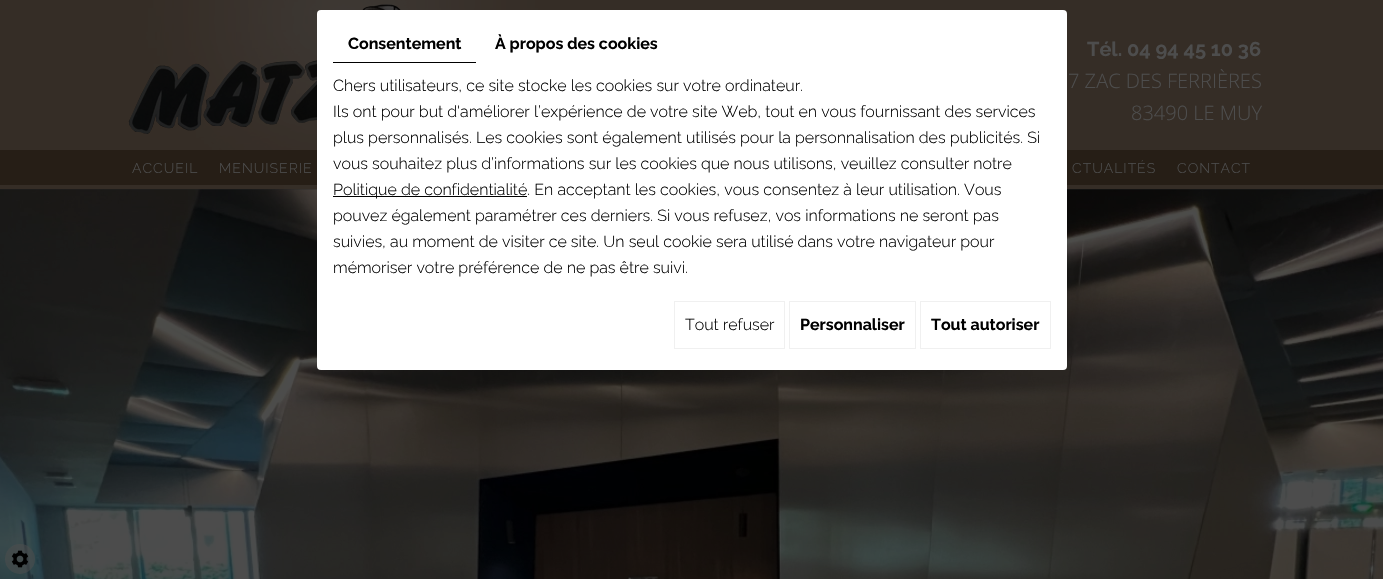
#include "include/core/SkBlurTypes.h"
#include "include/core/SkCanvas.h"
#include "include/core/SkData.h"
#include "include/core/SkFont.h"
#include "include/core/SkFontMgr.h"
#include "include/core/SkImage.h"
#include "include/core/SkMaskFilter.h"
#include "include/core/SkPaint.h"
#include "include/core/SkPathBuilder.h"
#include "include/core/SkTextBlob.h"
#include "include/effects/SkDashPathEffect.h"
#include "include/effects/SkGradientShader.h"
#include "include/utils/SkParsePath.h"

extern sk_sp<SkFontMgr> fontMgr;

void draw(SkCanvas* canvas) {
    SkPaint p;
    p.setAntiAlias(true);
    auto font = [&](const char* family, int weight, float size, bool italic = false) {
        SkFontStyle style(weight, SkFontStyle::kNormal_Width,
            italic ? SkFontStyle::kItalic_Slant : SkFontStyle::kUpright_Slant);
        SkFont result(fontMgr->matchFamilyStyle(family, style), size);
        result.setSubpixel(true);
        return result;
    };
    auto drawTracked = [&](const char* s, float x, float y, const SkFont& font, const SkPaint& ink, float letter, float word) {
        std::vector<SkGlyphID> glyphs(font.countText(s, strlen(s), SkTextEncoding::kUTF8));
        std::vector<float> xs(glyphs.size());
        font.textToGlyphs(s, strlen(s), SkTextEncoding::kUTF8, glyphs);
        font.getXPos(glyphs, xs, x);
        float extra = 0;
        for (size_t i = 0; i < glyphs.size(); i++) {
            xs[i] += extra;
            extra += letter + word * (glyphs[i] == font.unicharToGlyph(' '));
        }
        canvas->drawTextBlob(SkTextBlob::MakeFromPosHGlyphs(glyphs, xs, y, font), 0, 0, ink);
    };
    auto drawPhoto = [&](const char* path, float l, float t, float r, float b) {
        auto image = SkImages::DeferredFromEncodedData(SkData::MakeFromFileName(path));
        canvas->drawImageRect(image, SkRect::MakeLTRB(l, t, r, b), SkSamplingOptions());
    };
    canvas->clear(0xFFFFFFFF);
    drawPhoto("media/3.png", 0, 189, 1383, 579);
    p.setColor(0x4D262626);
    canvas->drawRect(SkRect::MakeLTRB(0, 189, 1383, 190), p);
    drawPhoto("media/1.png", 0, 0, 1383, 189);
    drawPhoto("media/2.png", 128, 4, 401, 134);
    p.setColor(0xFF261E16);
    canvas->drawRect(SkRect::MakeLTRB(0, 150, 1383, 185), p);
    p.setColor(0xFFFFFFFF);
    canvas->drawRoundRect(SkRect::MakeLTRB(317, 10, 1067, 370), 4, 4, p);
    p.setColor(0xFF000000);
    canvas->drawRect(SkRect::MakeLTRB(333, 62, 476, 63), p);
    auto font1 = font("Raleway", 700, 16);
    canvas->drawString("Consentement", 348, 49, font1, p);
    canvas->drawString("À propos des cookies", 495, 49, font1, p);
    auto font2 = font("Raleway", 300, 16);
    {
        const struct { const char* s; float x, y; } items[] = {
            {"Chers utilisateurs, ce site stocke les cookies sur votre ordinateur.", 333, 91},
            {"Ils ont pour but d'améliorer l’expérience de votre site Web, tout en vous fournissant des services", 333, 117},
            {"plus personnalisés. Les cookies sont également utilisés pour la personnalisation des publicités. Si", 333, 143},
            {"vous souhaitez plus d’informations sur les cookies que nous utilisons, veuillez consulter notre", 333, 169},
        };
        for (auto [s, x, y] : items) {
            canvas->drawString(s, x, y, font2, p);
        }
    }
    canvas->drawRect(SkRect::MakeLTRB(333, 196, 527, 197), p);
    {
        const struct { const char* s; float x, y; } items[] = {
            {"Politique de confidentialité. En acceptant les cookies, vous consentez à leur utilisation. Vous", 333, 195},
            {"pouvez également paramétrer ces derniers. Si vous refusez, vos informations ne seront pas", 333, 221},
            {"suivies, au moment de visiter ce site. Un seul cookie sera utilisé dans votre navigateur pour", 333, 247},
            {"mémoriser votre préférence de ne pas être suivi.", 333, 273},
        };
        for (auto [s, x, y] : items) {
            canvas->drawString(s, x, y, font2, p);
        }
    }
    p.setStyle(SkPaint::kStroke_Style);
    p.setStrokeWidth(1);
    p.setColor(0xFFF0F0F0);
    canvas->drawRect(SkRect::MakeLTRB(674.5f, 301.5f, 784.5f, 348.5f), p);
    p.setStyle(SkPaint::kFill_Style);
    p.setColor(0xFF000000);
    canvas->drawString("Tout refuser", 685, 330, font2, p);
    p.setStyle(SkPaint::kStroke_Style);
    p.setColor(0xFFF0F0F0);
    canvas->drawRect(SkRect::MakeLTRB(789.5f, 301.5f, 915.5f, 348.5f), p);
    p.setStyle(SkPaint::kFill_Style);
    p.setColor(0xFF000000);
    canvas->drawString("Personnaliser", 800, 330, font1, p);
    p.setStyle(SkPaint::kStroke_Style);
    p.setColor(0xFFF0F0F0);
    canvas->drawRect(SkRect::MakeLTRB(920.5f, 301.5f, 1050.5f, 348.5f), p);
    p.setStyle(SkPaint::kFill_Style);
    p.setColor(0xFF000000);
    canvas->drawString("Tout autoriser", 931, 330, font1, p);
    auto font3 = font("Raleway", 700, 20);
    p.setColor(0xFF4D4D4D);
    canvas->drawString("Tél. 04 94 45 10 36", 1087, 56, font3, p);
    auto font4 = font("Open Sans", 300, 20);
    canvas->drawString("7 ZAC DES FERRIÈRES", 1068, 88, font4, p);
    canvas->drawString("83490 LE MUY", 1131, 120, font4, p);
    auto font5 = font("Raleway", 300, 14);
    {
        const struct { const char* s; float x, y; } items[] = {
            {"ACCUEIL", 132, 173},
            {"MENUISERIE", 219, 173},
            {"CTUALITÉS", 1072, 173},
            {"CONTACT", 1177, 173},
        };
        for (auto [s, x, y] : items) {
            drawTracked(s, x, y, font5, p, 1, 0);
        }
    }
    p.setColor(0x8A4D4D4D);
    canvas->drawCircle(20, 559, 15, p);
    drawPhoto("media/4.png", 11, 550, 29, 568);
}
